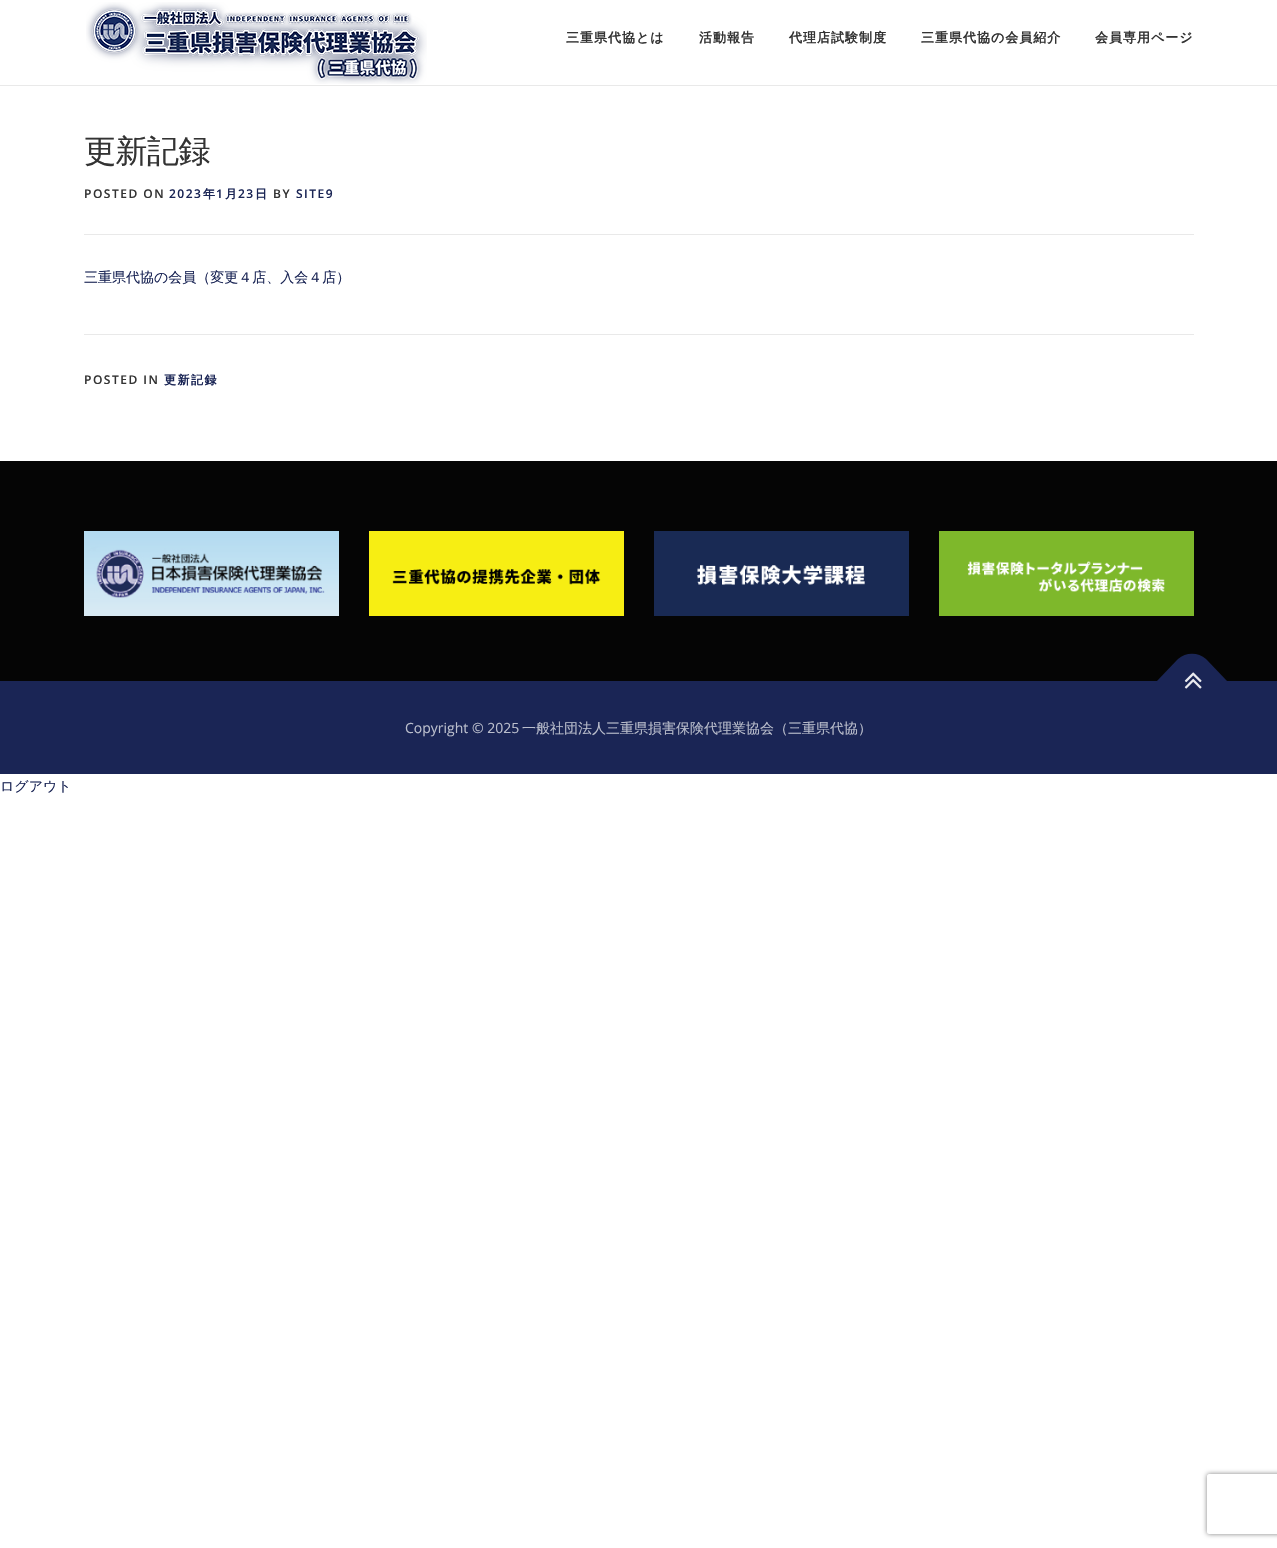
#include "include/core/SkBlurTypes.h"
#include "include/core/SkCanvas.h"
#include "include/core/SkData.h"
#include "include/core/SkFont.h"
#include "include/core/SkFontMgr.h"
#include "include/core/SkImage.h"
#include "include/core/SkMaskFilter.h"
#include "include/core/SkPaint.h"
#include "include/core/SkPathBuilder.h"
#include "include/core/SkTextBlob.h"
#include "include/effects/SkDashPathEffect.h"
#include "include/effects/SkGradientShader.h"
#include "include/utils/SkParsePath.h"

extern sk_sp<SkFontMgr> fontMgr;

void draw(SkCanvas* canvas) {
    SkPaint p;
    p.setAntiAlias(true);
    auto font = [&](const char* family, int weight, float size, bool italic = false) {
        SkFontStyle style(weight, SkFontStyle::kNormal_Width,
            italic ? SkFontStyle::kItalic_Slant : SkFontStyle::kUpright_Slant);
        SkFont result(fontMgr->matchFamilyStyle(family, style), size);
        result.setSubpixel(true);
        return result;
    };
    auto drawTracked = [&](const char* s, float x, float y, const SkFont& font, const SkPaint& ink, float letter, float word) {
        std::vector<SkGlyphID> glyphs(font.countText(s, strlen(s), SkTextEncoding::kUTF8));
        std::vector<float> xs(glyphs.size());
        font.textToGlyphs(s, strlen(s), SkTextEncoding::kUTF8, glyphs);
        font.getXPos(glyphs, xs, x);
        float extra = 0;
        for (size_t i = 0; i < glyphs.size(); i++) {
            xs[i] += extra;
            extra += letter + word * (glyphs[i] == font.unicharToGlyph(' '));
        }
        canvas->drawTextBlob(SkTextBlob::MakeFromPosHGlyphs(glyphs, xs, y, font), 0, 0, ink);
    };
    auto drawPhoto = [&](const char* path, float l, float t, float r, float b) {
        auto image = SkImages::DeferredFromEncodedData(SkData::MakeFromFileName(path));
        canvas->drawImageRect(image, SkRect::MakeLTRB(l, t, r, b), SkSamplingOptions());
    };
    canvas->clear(0xFFFFFFFF);
    drawPhoto("media/1.png", 86, 2, 427, 84);
    auto font1 = font("WenQuanYi Zen Hei", 700, 13);
    p.setColor(0xFF333333);
    {
        const struct { const char* s; float x, y; } items[] = {
            {"三重県代協とは", 566, 42},
            {"活動報告", 699, 42},
            {"代理店試験制度", 789, 42},
            {"三重県代協の会員紹介", 921, 42},
            {"会員専用ページ", 1095, 42},
        };
        for (auto [s, x, y] : items) {
            drawTracked(s, x, y, font1, p, 1, 0);
        }
    }
    p.setColor(0xFFE9E9E9);
    canvas->drawRect(SkRect::MakeLTRB(0, 85, 1277, 86), p);
    auto font2 = font("WenQuanYi Zen Hei", 500, 32);
    p.setColor(0xFF333333);
    drawTracked("更新記録", 84, 162, font2, p, -0.5f, 0);
    p.setColor(0xFFE9E9E9);
    canvas->drawRect(SkRect::MakeLTRB(84, 234, 1194, 235), p);
    auto font3 = font("Open Sans", 600, 12);
    p.setColor(0xFF333333);
    drawTracked("POSTED ON", 84, 198, font3, p, 1.5f, 0);
    p.setColor(0xFF1A2555);
    drawTracked("2023", 169, 198, font3, p, 1.5f, 0);
    auto font4 = font("WenQuanYi Zen Hei", 700, 12);
    drawTracked("年", 203, 198, font4, p, 1.5f, 0);
    drawTracked("1", 216, 198, font3, p, 1.5f, 0);
    drawTracked("月", 225, 198, font4, p, 1.5f, 0);
    drawTracked("23", 238, 198, font3, p, 1.5f, 0);
    drawTracked("日", 255, 198, font4, p, 1.5f, 0);
    p.setColor(0xFF333333);
    drawTracked("BY", 273, 198, font3, p, 1.5f, 0);
    p.setColor(0xFF1A2555);
    drawTracked("SITE9", 296, 198, font3, p, 1.5f, 0);
    auto font5 = font("WenQuanYi Zen Hei", 500, 14);
    canvas->drawString("三重県代協の会員（変更４店、入会４店）", 84, 282, font5, p);
    p.setColor(0xFFE9E9E9);
    canvas->drawRect(SkRect::MakeLTRB(84, 334, 1194, 335), p);
    p.setColor(0xFF333333);
    drawTracked("POSTED IN", 84, 384, font3, p, 1.5f, 0);
    p.setColor(0xFF1A2555);
    drawTracked("更新記録", 164, 384, font4, p, 1.5f, 0);
    p.setColor(0xFF050505);
    canvas->drawRect(SkRect::MakeLTRB(0, 461, 1277, 681), p);
    drawPhoto("media/2.png", 84, 531, 339, 616);
    drawPhoto("media/3.png", 369, 531, 624, 616);
    drawPhoto("media/4.png", 654, 531, 909, 616);
    drawPhoto("media/5.png", 939, 531, 1194, 616);
    p.setColor(0xFF1A2555);
    canvas->drawRect(SkRect::MakeLTRB(0, 681, 1277, 774), p);
    canvas->drawPath(SkPathBuilder().moveTo(1157, 681).lineTo(1178, 659).cubicTo(1186, 652, 1198, 652, 1206, 659).lineTo(1227, 681).lineTo(1192, 716).close().detach(), p);
    drawPhoto("media/6.png", 1184, 672, 1202, 689);
    auto font6 = font("Open Sans", 400, 14);
    p.setColor(0xFFBABECC);
    canvas->drawString("Copyright © 2025", 405, 733, font6, p);
    canvas->drawString("一般社団法人三重県損害保険代理業協会（三重県代協）", 522, 733, font5, p);
    p.setColor(0xFF1A2555);
    canvas->drawString("ログアウト", 0, 791, font5, p);
    canvas->save();
    canvas->clipPath(SkPathBuilder(SkPathFillType::kEvenOdd).moveTo(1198, 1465).lineTo(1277, 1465).lineTo(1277, 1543).lineTo(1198, 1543).close().moveTo(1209, 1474).lineTo(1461, 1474).cubicTo(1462, 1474, 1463, 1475, 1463, 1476).lineTo(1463, 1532).cubicTo(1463, 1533, 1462, 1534, 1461, 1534).lineTo(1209, 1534).cubicTo(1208, 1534, 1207, 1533, 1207, 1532).lineTo(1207, 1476).cubicTo(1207, 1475, 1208, 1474, 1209, 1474).close().detach(), true);
    p.setColor(0xFF808080);
    p.setMaskFilter(SkMaskFilter::MakeBlur(kNormal_SkBlurStyle, 2.5f));
    canvas->drawRoundRect(SkRect::MakeLTRB(1207, 1474, 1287, 1534), 2, 2, p);
    p.setMaskFilter(nullptr);
    canvas->restore();
}
